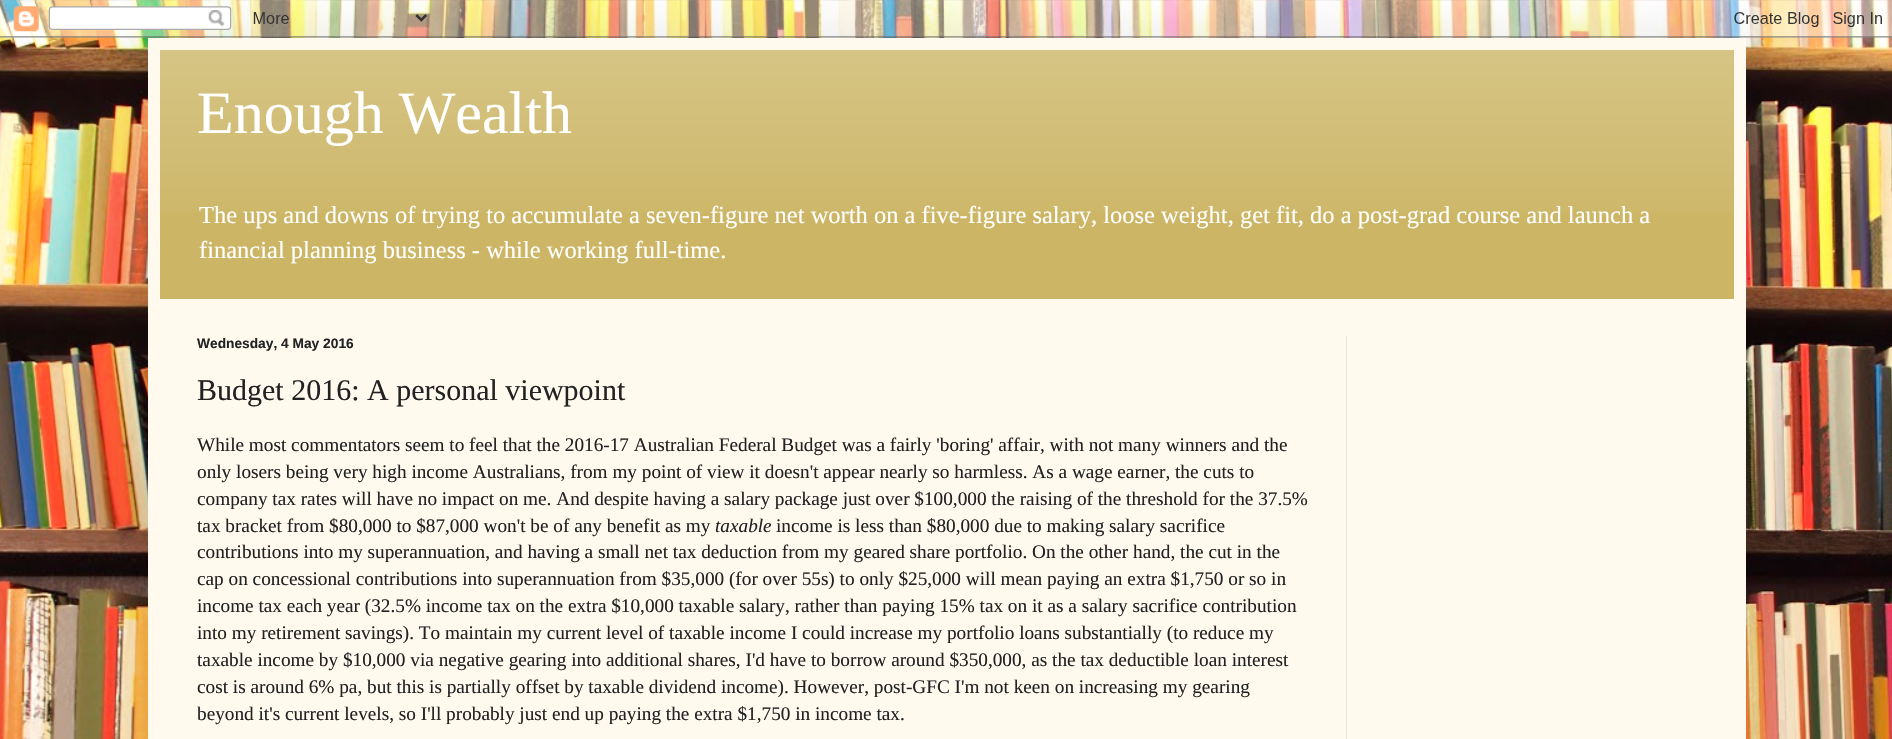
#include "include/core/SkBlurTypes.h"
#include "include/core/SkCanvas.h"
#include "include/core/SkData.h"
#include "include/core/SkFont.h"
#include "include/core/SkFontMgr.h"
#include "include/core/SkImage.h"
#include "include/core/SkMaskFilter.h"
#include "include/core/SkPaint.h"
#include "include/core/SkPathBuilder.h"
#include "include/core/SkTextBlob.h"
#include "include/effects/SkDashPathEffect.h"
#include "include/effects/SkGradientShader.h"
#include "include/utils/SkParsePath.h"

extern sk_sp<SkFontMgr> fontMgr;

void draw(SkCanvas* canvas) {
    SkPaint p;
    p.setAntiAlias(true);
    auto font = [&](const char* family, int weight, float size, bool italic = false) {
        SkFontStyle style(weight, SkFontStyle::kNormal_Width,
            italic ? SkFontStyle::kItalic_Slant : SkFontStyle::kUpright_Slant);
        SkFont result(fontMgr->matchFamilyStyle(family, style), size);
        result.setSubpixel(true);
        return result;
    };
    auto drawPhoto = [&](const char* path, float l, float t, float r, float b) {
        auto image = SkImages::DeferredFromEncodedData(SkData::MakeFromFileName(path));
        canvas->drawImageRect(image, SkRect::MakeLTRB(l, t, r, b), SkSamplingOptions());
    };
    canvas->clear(0xFFFFFFFF);
    drawPhoto("media/1.png", 0, 0, 1892, 739);
    p.setColor(0x26000000);
    p.setMaskFilter(SkMaskFilter::MakeBlur(kNormal_SkBlurStyle, 25));
    canvas->drawRect(SkRect::MakeLTRB(148, 38, 1746, 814), p);
    p.setMaskFilter(nullptr);
    drawPhoto("media/2.png", 0, 0, 1892, 38);
    p.setColor(0xFFFFF9EE);
    canvas->drawRect(SkRect::MakeLTRB(148, 38, 1746, 739), p);
    p.setColor(0xFFCCB666);
    canvas->drawRect(SkRect::MakeLTRB(160, 50, 1734, 299), p);
    drawPhoto("media/3.png", 160, 50, 1734, 213);
    auto font1 = font("Liberation Serif", 400, 60);
    p.setColor(0xFFFFFFFF);
    canvas->drawString("Enough Wealth", 197, 133, font1, p);
    auto font2 = font("Liberation Serif", 400, 24.5f);
    canvas->drawString("The ups and downs of trying to accumulate a seven-figure net worth on a five-figure salary, loose weight, get fit, do a post-grad course and launch a", 199, 223, font2, p);
    canvas->drawString("financial planning business - while working full-time.", 199, 258, font2, p);
    auto font3 = font("Liberation Sans", 700, 13.75f);
    p.setColor(0xFF222222);
    canvas->drawString("Wednesday, 4 May 2016", 197, 348, font3, p);
    auto font4 = font("Liberation Serif", 400, 30);
    canvas->drawString("Budget 2016: A personal viewpoint", 197, 400, font4, p);
    auto font5 = font("Liberation Serif", 400, 19.25f);
    {
        const struct { const char* s; float x, y; } items[] = {
            {"While most commentators seem to feel that the 2016-17 Australian Federal Budget was a fairly 'boring' affair, with not many winners and the", 197, 451},
            {"only losers being very high income Australians, from my point of view it doesn't appear nearly so harmless. As a wage earner, the cuts to", 197, 478},
            {"company tax rates will have no impact on me. And despite having a salary package just over $100,000 the raising of the threshold for the 37.5%", 197, 505},
            {"tax bracket from $80,000 to $87,000 won't be of any benefit as my", 197, 532},
        };
        for (auto [s, x, y] : items) {
            canvas->drawString(s, x, y, font5, p);
        }
    }
    auto font6 = font("Liberation Serif", 400, 19.25f, true);
    canvas->drawString("taxable", 715, 532, font6, p);
    {
        const struct { const char* s; float x, y; } items[] = {
            {"income is less than $80,000 due to making salary sacrifice", 776, 532},
            {"contributions into my superannuation, and having a small net tax deduction from my geared share portfolio. On the other hand, the cut in the", 197, 558},
            {"cap on concessional contributions into superannuation from $35,000 (for over 55s) to only $25,000 will mean paying an extra $1,750 or so in", 197, 585},
            {"income tax each year (32.5% income tax on the extra $10,000 taxable salary, rather than paying 15% tax on it as a salary sacrifice contribution", 197, 612},
            {"into my retirement savings). To maintain my current level of taxable income I could increase my portfolio loans substantially (to reduce my", 197, 639},
            {"taxable income by $10,000 via negative gearing into additional shares, I'd have to borrow around $350,000, as the tax deductible loan interest", 197, 666},
            {"cost is around 6% pa, but this is partially offset by taxable dividend income). However, post-GFC I'm not keen on increasing my gearing", 197, 693},
            {"beyond it's current levels, so I'll probably just end up paying the extra $1,750 in income tax.", 197, 720},
        };
        for (auto [s, x, y] : items) {
            canvas->drawString(s, x, y, font5, p);
        }
    }
    p.setColor(0xFFEEE5DD);
    canvas->drawRect(SkRect::MakeLTRB(1346, 336, 1347, 739), p);
}
